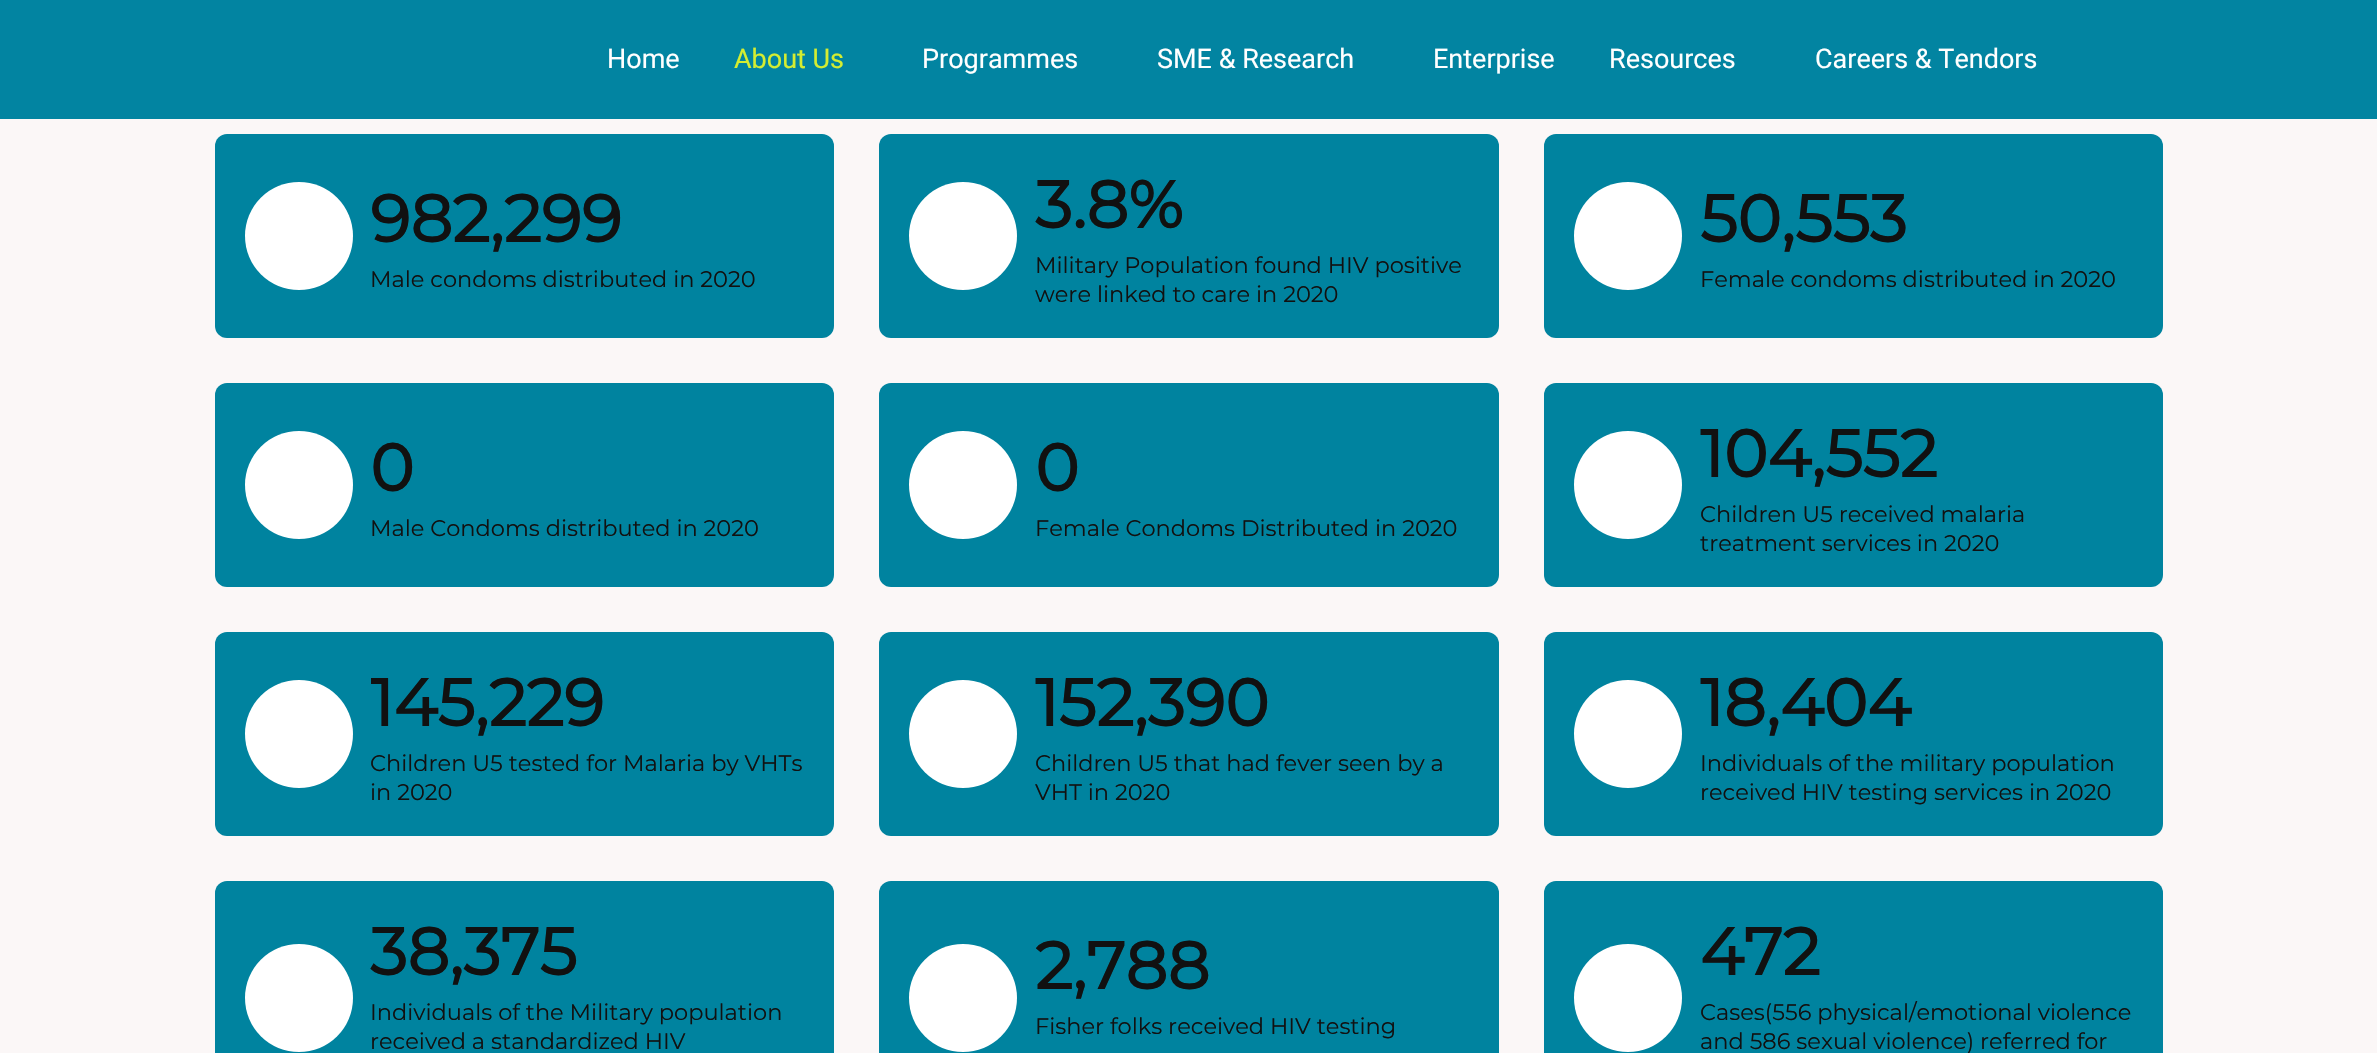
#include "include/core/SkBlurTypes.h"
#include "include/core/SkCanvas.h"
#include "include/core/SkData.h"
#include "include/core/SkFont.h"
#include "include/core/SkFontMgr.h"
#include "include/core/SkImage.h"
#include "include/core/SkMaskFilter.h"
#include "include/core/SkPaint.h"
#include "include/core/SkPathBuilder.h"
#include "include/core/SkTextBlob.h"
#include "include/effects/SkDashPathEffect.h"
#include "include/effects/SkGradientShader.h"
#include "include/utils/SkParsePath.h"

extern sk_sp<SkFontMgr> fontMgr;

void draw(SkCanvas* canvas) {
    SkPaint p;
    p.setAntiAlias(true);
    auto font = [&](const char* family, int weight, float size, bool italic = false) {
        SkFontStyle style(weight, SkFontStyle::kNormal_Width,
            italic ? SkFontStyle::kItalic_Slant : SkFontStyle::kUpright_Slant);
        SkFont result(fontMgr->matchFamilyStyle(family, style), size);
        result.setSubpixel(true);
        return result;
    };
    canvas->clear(0xFFFBF7F7);
    p.setColor(0xFF0284A1);
    canvas->drawRect(SkRect::MakeLTRB(0, 0, 2377, 119), p);
    auto font1 = font("Roboto", 400, 27);
    p.setColor(0xFFFFFFFF);
    canvas->drawString("Home", 607, 68, font1, p);
    p.setColor(0xFFD4ED31);
    canvas->drawString("About Us", 734, 68, font1, p);
    p.setColor(0xFFFFFFFF);
    {
        const struct { const char* s; float x, y; } items[] = {
            {"Programmes", 922, 68},
            {"SME & Research", 1157, 68},
            {"Enterprise", 1433, 68},
            {"Resources", 1609, 68},
            {"Careers & Tendors", 1815, 68},
        };
        for (auto [s, x, y] : items) {
            canvas->drawString(s, x, y, font1, p);
        }
    }
    p.setColor(0xFF00839F);
    canvas->drawRoundRect(SkRect::MakeLTRB(215, 134, 834, 338), 12, 12, p);
    p.setColor(0xFFFFFFFF);
    canvas->drawCircle(299, 236, 54, p);
    auto font2 = font("Montserrat", 700, 66);
    p.setColor(0xFF111111);
    canvas->drawString("982,299", 370, 242, font2, p);
    auto font3 = font("Montserrat", 100, 22.5f);
    canvas->drawString("Male condoms distributed in 2020", 370, 287, font3, p);
    p.setColor(0xFF00839F);
    canvas->drawRoundRect(SkRect::MakeLTRB(879, 134, 1499, 338), 12, 12, p);
    p.setColor(0xFFFFFFFF);
    canvas->drawCircle(963, 236, 54, p);
    p.setColor(0xFF111111);
    canvas->drawString("3.8%", 1035, 228, font2, p);
    canvas->drawString("Military Population found HIV positive", 1035, 273, font3, p);
    canvas->drawString("were linked to care in 2020", 1035, 302, font3, p);
    p.setColor(0xFF00839F);
    canvas->drawRoundRect(SkRect::MakeLTRB(1544, 134, 2163, 338), 12, 12, p);
    p.setColor(0xFFFFFFFF);
    canvas->drawCircle(1628, 236, 54, p);
    p.setColor(0xFF111111);
    canvas->drawString("50,553", 1700, 242, font2, p);
    canvas->drawString("Female condoms distributed in 2020", 1700, 287, font3, p);
    p.setColor(0xFF00839F);
    canvas->drawRoundRect(SkRect::MakeLTRB(215, 383, 834, 587), 12, 12, p);
    p.setColor(0xFFFFFFFF);
    canvas->drawCircle(299, 485, 54, p);
    p.setColor(0xFF111111);
    canvas->drawString("0", 370, 491, font2, p);
    canvas->drawString("Male Condoms distributed in 2020", 370, 536, font3, p);
    p.setColor(0xFF00839F);
    canvas->drawRoundRect(SkRect::MakeLTRB(879, 383, 1499, 587), 12, 12, p);
    p.setColor(0xFFFFFFFF);
    canvas->drawCircle(963, 485, 54, p);
    p.setColor(0xFF111111);
    canvas->drawString("0", 1035, 491, font2, p);
    canvas->drawString("Female Condoms Distributed in 2020", 1035, 536, font3, p);
    p.setColor(0xFF00839F);
    canvas->drawRoundRect(SkRect::MakeLTRB(1544, 383, 2163, 587), 12, 12, p);
    p.setColor(0xFFFFFFFF);
    canvas->drawCircle(1628, 485, 54, p);
    p.setColor(0xFF111111);
    canvas->drawString("104,552", 1700, 477, font2, p);
    canvas->drawString("Children U5 received malaria", 1700, 522, font3, p);
    canvas->drawString("treatment services in 2020", 1700, 551, font3, p);
    p.setColor(0xFF00839F);
    canvas->drawRoundRect(SkRect::MakeLTRB(215, 632, 834, 836), 12, 12, p);
    p.setColor(0xFFFFFFFF);
    canvas->drawCircle(299, 734, 54, p);
    canvas->save();
    canvas->clipRect(SkRect::MakeLTRB(371, 662, 804, 743));
    p.setColor(0xFF111111);
    canvas->drawString("145,229", 370, 726, font2, p);
    canvas->restore();
    canvas->drawString("Children U5 tested for Malaria by VHTs", 370, 771, font3, p);
    canvas->drawString("in 2020", 370, 800, font3, p);
    p.setColor(0xFF00839F);
    canvas->drawRoundRect(SkRect::MakeLTRB(879, 632, 1499, 836), 12, 12, p);
    p.setColor(0xFFFFFFFF);
    canvas->drawCircle(963, 734, 54, p);
    p.setColor(0xFF111111);
    canvas->drawString("152,390", 1035, 726, font2, p);
    canvas->drawString("Children U5 that had fever seen by a", 1035, 771, font3, p);
    canvas->drawString("VHT in 2020", 1035, 800, font3, p);
    p.setColor(0xFF00839F);
    canvas->drawRoundRect(SkRect::MakeLTRB(1544, 632, 2163, 836), 12, 12, p);
    p.setColor(0xFFFFFFFF);
    canvas->drawCircle(1628, 734, 54, p);
    p.setColor(0xFF111111);
    canvas->drawString("18,404", 1700, 726, font2, p);
    canvas->drawString("Individuals of the military population", 1700, 771, font3, p);
    canvas->drawString("received HIV testing services in 2020", 1700, 800, font3, p);
    p.setColor(0xFF00839F);
    canvas->drawRoundRect(SkRect::MakeLTRB(215, 881, 834, 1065), 12, 12, p);
    p.setColor(0xFFFFFFFF);
    canvas->drawCircle(299, 998, 54, p);
    p.setColor(0xFF111111);
    canvas->drawString("38,375", 370, 975, font2, p);
    canvas->drawString("Individuals of the Military population", 370, 1020, font3, p);
    canvas->drawString("received a standardized HIV", 370, 1049, font3, p);
    p.setColor(0xFF00839F);
    canvas->drawRoundRect(SkRect::MakeLTRB(879, 881, 1499, 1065), 12, 12, p);
    p.setColor(0xFFFFFFFF);
    canvas->drawCircle(963, 998, 54, p);
    p.setColor(0xFF111111);
    canvas->drawString("2,788", 1035, 989, font2, p);
    canvas->drawString("Fisher folks received HIV testing", 1035, 1034, font3, p);
    p.setColor(0xFF00839F);
    canvas->drawRoundRect(SkRect::MakeLTRB(1544, 881, 2163, 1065), 12, 12, p);
    p.setColor(0xFFFFFFFF);
    canvas->drawCircle(1628, 998, 54, p);
    p.setColor(0xFF111111);
    canvas->drawString("472", 1700, 975, font2, p);
    canvas->drawString("Cases(556 physical/emotional violence", 1700, 1020, font3, p);
    canvas->drawString("and 586 sexual violence) referred for", 1700, 1049, font3, p);
}
